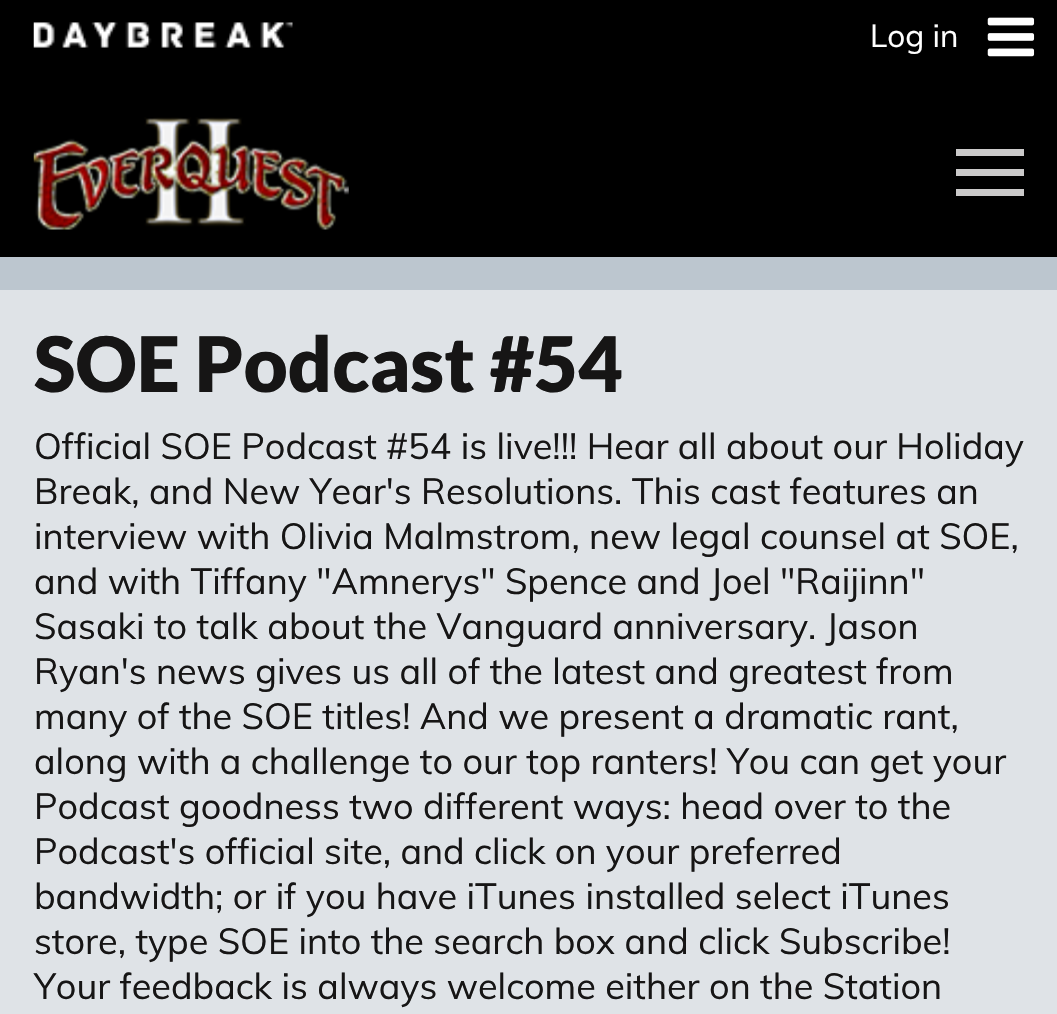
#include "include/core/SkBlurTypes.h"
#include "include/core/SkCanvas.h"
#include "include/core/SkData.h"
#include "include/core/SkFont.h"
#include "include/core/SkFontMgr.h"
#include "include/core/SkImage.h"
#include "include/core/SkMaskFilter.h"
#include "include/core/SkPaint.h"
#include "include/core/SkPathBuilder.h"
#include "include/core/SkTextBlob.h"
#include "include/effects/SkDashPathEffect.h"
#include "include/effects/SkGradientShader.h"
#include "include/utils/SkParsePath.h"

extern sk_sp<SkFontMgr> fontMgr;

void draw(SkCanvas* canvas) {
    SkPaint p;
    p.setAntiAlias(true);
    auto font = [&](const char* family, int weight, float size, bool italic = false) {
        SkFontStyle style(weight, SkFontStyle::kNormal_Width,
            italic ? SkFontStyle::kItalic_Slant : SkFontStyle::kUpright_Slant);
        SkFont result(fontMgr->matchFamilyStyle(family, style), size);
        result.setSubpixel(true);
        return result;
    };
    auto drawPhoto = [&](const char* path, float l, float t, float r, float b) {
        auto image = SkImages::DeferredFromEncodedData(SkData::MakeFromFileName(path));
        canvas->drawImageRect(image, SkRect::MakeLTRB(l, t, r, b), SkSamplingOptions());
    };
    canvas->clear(0xFFBCC6CF);
    p.setColor(0xFF000000);
    canvas->drawRect(SkRect::MakeLTRB(0, 0, 1057, 257), p);
    drawPhoto("media/1.png", 33, 22, 293, 48);
    auto font1 = font("Muli", 400, 31.5f);
    p.setColor(0xFFFFFFFF);
    canvas->drawString("Log in", 870, 47, font1, p);
    drawPhoto("media/2.png", 987, 17, 1035, 57);
    drawPhoto("media/3.png", 33, 117, 349, 230);
    {
        const struct { float l, t, r, b; SkColor color; } items[] = {
            {956, 149, 1024, 156, 0xFFCBCACA},
            {956, 169, 1024, 176, 0xFFCBCACA},
            {956, 189, 1024, 196, 0xFFCBCACA},
            {0, 290, 1057, 1014, 0xFFDFE3E7},
        };
        for (auto [l, t, r, b, color] : items) {
            p.setColor(color);
            canvas->drawRect(SkRect::MakeLTRB(l, t, r, b), p);
        }
    }
    auto font2 = font("Lato", 900, 76.5f);
    p.setColor(0xFF161515);
    canvas->drawString("SOE Podcast #54", 34, 392, font2, p);
    auto font3 = font("Muli", 400, 36);
    {
        const struct { const char* s; float x, y; } items[] = {
            {"Official SOE Podcast #54 is live!!! Hear all about our Holiday", 34, 459},
            {"Break, and New Year's Resolutions. This cast features an", 34, 504},
            {"interview with Olivia Malmstrom, new legal counsel at SOE,", 34, 549},
            {"and with Tiffany \"Amnerys\" Spence and Joel \"Raijinn\"", 34, 594},
            {"Sasaki to talk about the Vanguard anniversary. Jason", 34, 639},
            {"Ryan's news gives us all of the latest and greatest from", 34, 684},
            {"many of the SOE titles! And we present a dramatic rant,", 34, 729},
            {"along with a challenge to our top ranters! You can get your", 34, 774},
            {"Podcast goodness two different ways: head over to the", 34, 819},
            {"Podcast's official site, and click on your preferred", 34, 864},
            {"bandwidth; or if you have iTunes installed select iTunes", 34, 909},
            {"store, type SOE into the search box and click Subscribe!", 34, 954},
            {"Your feedback is always welcome either on the Station", 34, 999},
        };
        for (auto [s, x, y] : items) {
            canvas->drawString(s, x, y, font3, p);
        }
    }
}
